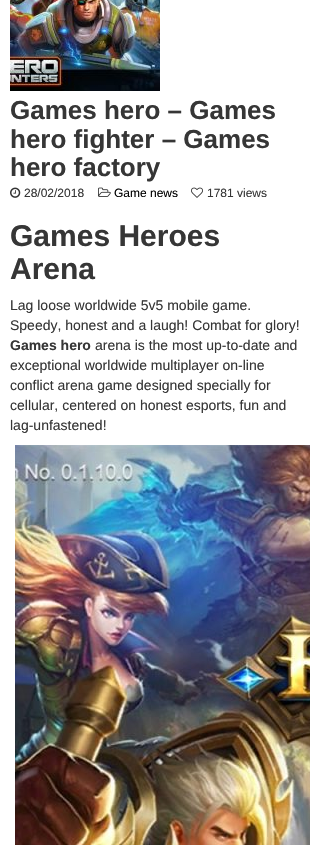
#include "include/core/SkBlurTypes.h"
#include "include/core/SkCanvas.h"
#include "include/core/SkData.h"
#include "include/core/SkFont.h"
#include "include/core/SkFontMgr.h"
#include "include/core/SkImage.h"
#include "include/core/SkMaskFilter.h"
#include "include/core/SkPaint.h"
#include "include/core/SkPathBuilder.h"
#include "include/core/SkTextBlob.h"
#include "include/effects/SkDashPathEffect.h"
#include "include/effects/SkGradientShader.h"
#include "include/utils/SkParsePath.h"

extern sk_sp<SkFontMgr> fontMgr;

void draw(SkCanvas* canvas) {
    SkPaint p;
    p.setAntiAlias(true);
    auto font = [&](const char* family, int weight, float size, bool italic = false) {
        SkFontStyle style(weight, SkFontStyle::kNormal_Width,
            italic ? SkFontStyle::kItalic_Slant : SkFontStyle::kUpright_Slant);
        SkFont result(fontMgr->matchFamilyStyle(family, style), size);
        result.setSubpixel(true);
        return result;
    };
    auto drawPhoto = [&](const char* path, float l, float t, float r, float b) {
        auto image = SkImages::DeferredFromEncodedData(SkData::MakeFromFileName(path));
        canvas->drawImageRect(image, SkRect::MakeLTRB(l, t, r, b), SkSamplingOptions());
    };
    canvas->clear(0xFFFFFFFF);
    drawPhoto("media/1.png", 10, 0, 160, 91);
    auto font1 = font("Liberation Sans", 700, 26);
    p.setColor(0xFF363636);
    {
        const struct { const char* s; float x, y; } items[] = {
            {"Games hero – Games", 10, 119},
            {"hero fighter – Games", 10, 148},
            {"hero factory", 10, 176},
        };
        for (auto [s, x, y] : items) {
            canvas->drawString(s, x, y, font1, p);
        }
    }
    drawPhoto("media/2.png", 10, 187, 21, 198);
    auto font2 = font("Liberation Sans", 400, 12);
    canvas->drawString("28/02/2018", 24, 197, font2, p);
    drawPhoto("media/3.png", 98, 187, 111, 197);
    p.setColor(0xFF000000);
    canvas->drawString("Game news", 114, 197, font2, p);
    drawPhoto("media/4.png", 191, 187, 203, 198);
    p.setColor(0xFF363636);
    canvas->drawString("1781 views", 207, 197, font2, p);
    auto font3 = font("Liberation Sans", 700, 30);
    canvas->drawString("Games Heroes", 10, 246, font3, p);
    canvas->drawString("Arena", 10, 279, font3, p);
    auto font4 = font("Liberation Sans", 400, 14);
    canvas->drawString("Lag loose worldwide 5v5 mobile game.", 10, 310, font4, p);
    canvas->drawString("Speedy, honest and a laugh! Combat for glory!", 10, 330, font4, p);
    auto font5 = font("Liberation Sans", 700, 14);
    canvas->drawString("Games hero", 10, 350, font5, p);
    {
        const struct { const char* s; float x, y; } items[] = {
            {"arena is the most up-to-date and", 95, 350},
            {"exceptional worldwide multiplayer on-line", 10, 370},
            {"conflict arena game designed specially for", 10, 390},
            {"cellular, centered on honest esports, fun and", 10, 410},
            {"lag-unfastened!", 10, 430},
        };
        for (auto [s, x, y] : items) {
            canvas->drawString(s, x, y, font4, p);
        }
    }
    drawPhoto("media/5.png", 15, 445, 310, 845);
}
